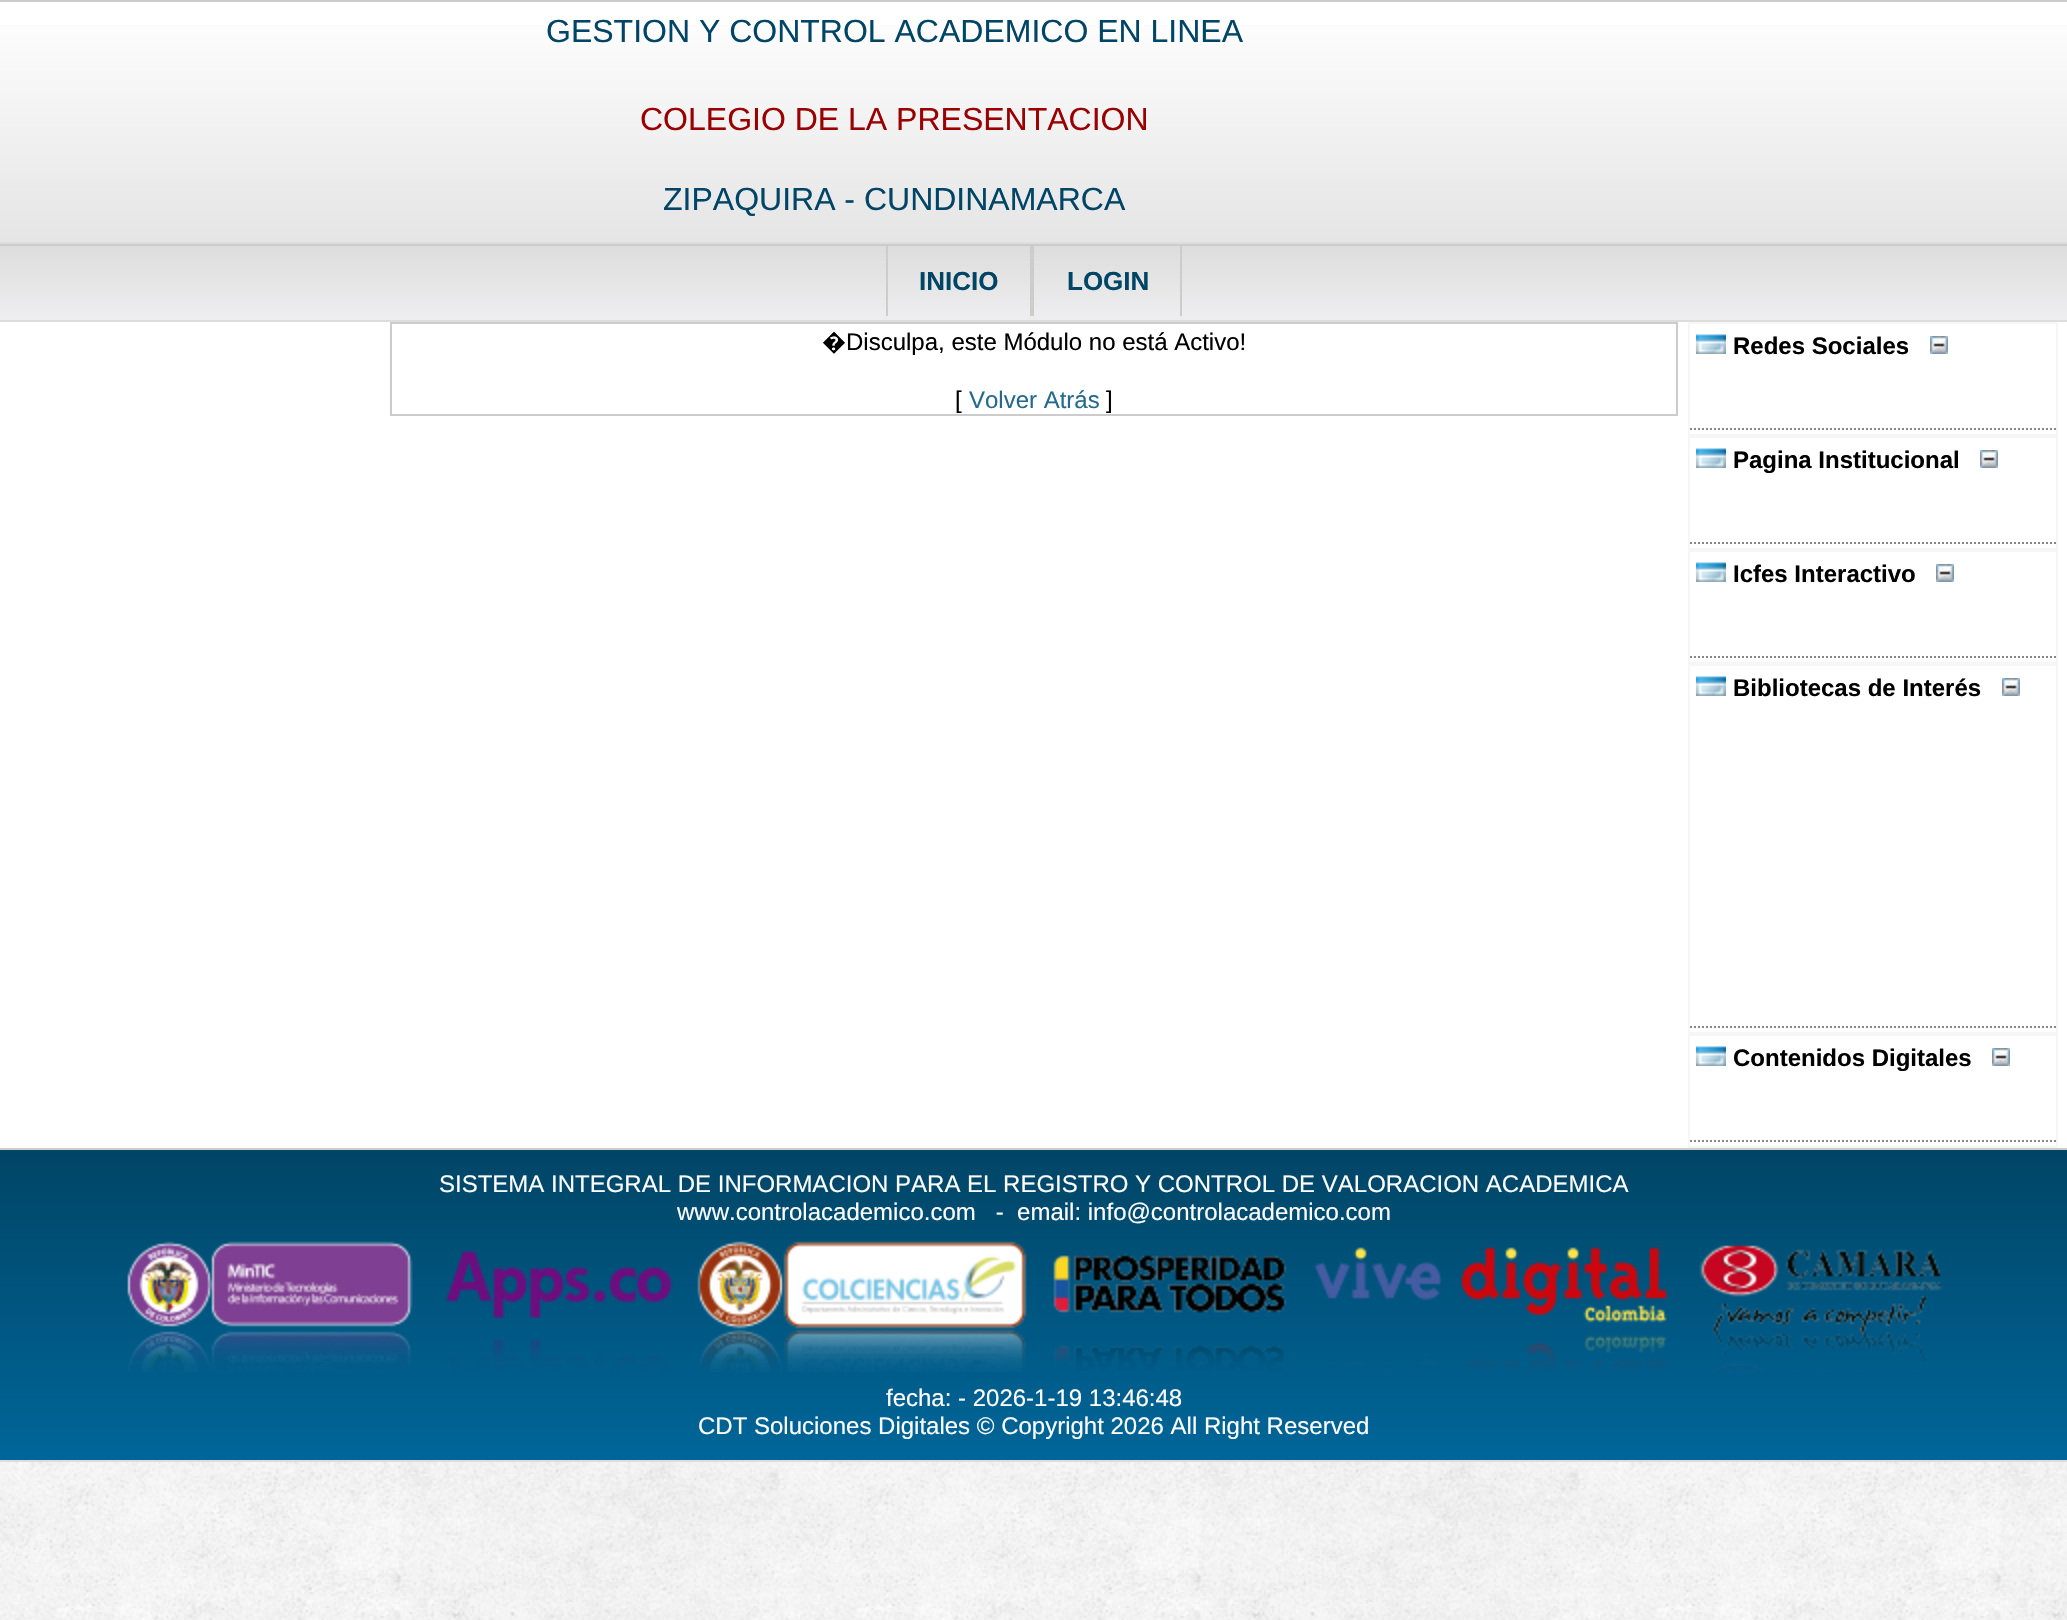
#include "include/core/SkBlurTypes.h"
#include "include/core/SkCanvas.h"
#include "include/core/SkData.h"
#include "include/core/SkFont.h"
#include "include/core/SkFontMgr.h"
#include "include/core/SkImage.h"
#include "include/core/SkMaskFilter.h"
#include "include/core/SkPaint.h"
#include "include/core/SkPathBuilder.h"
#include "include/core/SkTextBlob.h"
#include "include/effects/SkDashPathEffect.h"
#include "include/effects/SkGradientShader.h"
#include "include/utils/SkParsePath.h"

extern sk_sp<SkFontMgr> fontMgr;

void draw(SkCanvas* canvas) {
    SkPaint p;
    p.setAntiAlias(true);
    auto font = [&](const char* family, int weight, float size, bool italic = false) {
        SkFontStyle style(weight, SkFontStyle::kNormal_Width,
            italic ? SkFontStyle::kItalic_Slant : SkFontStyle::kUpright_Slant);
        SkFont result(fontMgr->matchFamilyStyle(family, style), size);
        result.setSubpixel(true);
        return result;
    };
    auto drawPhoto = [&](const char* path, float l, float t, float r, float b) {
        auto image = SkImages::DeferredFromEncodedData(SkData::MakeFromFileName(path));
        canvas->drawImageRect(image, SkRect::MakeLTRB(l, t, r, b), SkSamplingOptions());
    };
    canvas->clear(0xFFFFFFFF);
    drawPhoto("media/1.png", 0, 1462, 2067, 1620);
    {
        const SkColor colors[] = {0xFFFFFFFF, 0xFFE5E5E6};
        const float stops[] = {0, 1};
        const SkPoint ends[] = {{1034, 2}, {1034, 242}};
        p.setShader(SkGradientShader::MakeLinear(ends, colors, stops, 2, SkTileMode::kClamp));
        p.setAlpha(255);
    }
    canvas->drawRect(SkRect::MakeLTRB(0, 25, 2067, 242), p);
    p.setShader(nullptr);
    p.setColor(0xFFCCCCCC);
    canvas->drawRect(SkRect::MakeLTRB(0, 0, 2067, 2), p);
    p.setColor(0xFFDDDDDD);
    canvas->drawRect(SkRect::MakeLTRB(0, 242, 2067, 244), p);
    auto font1 = font("Liberation Sans", 400, 32);
    p.setColor(0xFF004566);
    canvas->drawString("GESTION Y CONTROL ACADEMICO EN LINEA", 546, 42, font1, p);
    p.setColor(0xFF9A0000);
    canvas->drawString("COLEGIO DE LA PRESENTACION", 640, 130, font1, p);
    p.setColor(0xFF004566);
    canvas->drawString("ZIPAQUIRA - CUNDINAMARCA", 663, 210, font1, p);
    {
        const SkColor colors[] = {0xFFDDDDDD, 0xFFEEEEF0};
        const float stops[] = {0, 1};
        const SkPoint ends[] = {{1034, 246}, {1034, 320}};
        p.setShader(SkGradientShader::MakeLinear(ends, colors, stops, 2, SkTileMode::kClamp));
        p.setAlpha(255);
    }
    canvas->drawRect(SkRect::MakeLTRB(0, 246, 2067, 320), p);
    {
        const SkColor colors[] = {0xFFDDDDDD, 0xFFEEEEF0};
        const float stops[] = {0, 1};
        const SkPoint ends[] = {{1034, 320}, {1034, 394}};
        p.setShader(SkGradientShader::MakeLinear(ends, colors, stops, 2, SkTileMode::kClamp));
        p.setAlpha(255);
    }
    canvas->drawRect(SkRect::MakeLTRB(0, 320, 2067, 322), p);
    p.setShader(nullptr);
    {
        const struct { float l, t, r, b; SkColor color; } items[] = {
            {0, 244, 2067, 246, 0xFFCCCCCC},
            {1030, 246, 1034, 316, 0xFFCCCCCC},
            {886, 246, 888, 316, 0xFFCCCCCC},
        };
        for (auto [l, t, r, b, color] : items) {
            p.setColor(color);
            canvas->drawRect(SkRect::MakeLTRB(l, t, r, b), p);
        }
    }
    auto font2 = font("Liberation Sans", 700, 26);
    p.setColor(0xFF004566);
    canvas->drawString("INICIO", 919, 290, font2, p);
    p.setColor(0xFFCCCCCC);
    canvas->drawRect(SkRect::MakeLTRB(1180, 246, 1182, 316), p);
    p.setColor(0xFF004566);
    canvas->drawString("LOGIN", 1067, 290, font2, p);
    p.setStyle(SkPaint::kStroke_Style);
    p.setStrokeWidth(2);
    p.setColor(0xFFCCCCCC);
    canvas->drawRect(SkRect::MakeLTRB(391, 323, 1677, 415), p);
    auto font3 = font("Noto Sans", 400, 24);
    p.setStyle(SkPaint::kFill_Style);
    p.setColor(0xFF000000);
    canvas->drawString("�", 822, 350, font3, p);
    auto font4 = font("Liberation Sans", 400, 24);
    canvas->drawString("Disculpa, este Módulo no está Activo!", 846, 350, font4, p);
    canvas->drawString("[", 955, 408, font4, p);
    p.setColor(0xFF256A8E);
    canvas->drawString("Volver Atrás", 969, 408, font4, p);
    p.setColor(0xFF000000);
    canvas->drawString("]", 1106, 408, font4, p);
    p.setStyle(SkPaint::kStroke_Style);
    p.setColor(0xFFF6F6F6);
    canvas->drawRect(SkRect::MakeLTRB(1689, 323, 2057, 435), p);
    drawPhoto("media/2.png", 1696, 334, 1726, 354);
    auto font5 = font("Liberation Sans", 700, 24);
    p.setStyle(SkPaint::kFill_Style);
    p.setColor(0xFF000000);
    canvas->drawString("Redes Sociales", 1733, 354, font5, p);
    drawPhoto("media/3.png", 1930, 336, 1948, 354);
    p.setStyle(SkPaint::kStroke_Style);
    p.setColor(0xFF868686);
    p.setPathEffect(SkDashPathEffect::Make({{2, 2}}, 0));
    canvas->drawPath(SkPathBuilder().moveTo(1690, 429).lineTo(2056, 429).detach(), p);
    p.setPathEffect(nullptr);
    p.setColor(0xFFF6F6F6);
    canvas->drawRect(SkRect::MakeLTRB(1689, 437, 2057, 549), p);
    drawPhoto("media/2.png", 1696, 448, 1726, 468);
    p.setStyle(SkPaint::kFill_Style);
    p.setColor(0xFF000000);
    canvas->drawString("Pagina Institucional", 1733, 468, font5, p);
    drawPhoto("media/3.png", 1980, 450, 1998, 468);
    p.setStyle(SkPaint::kStroke_Style);
    p.setColor(0xFF868686);
    p.setPathEffect(SkDashPathEffect::Make({{2, 2}}, 0));
    canvas->drawPath(SkPathBuilder().moveTo(1690, 543).lineTo(2056, 543).detach(), p);
    p.setPathEffect(nullptr);
    p.setColor(0xFFF6F6F6);
    canvas->drawRect(SkRect::MakeLTRB(1689, 551, 2057, 663), p);
    drawPhoto("media/2.png", 1696, 562, 1726, 582);
    p.setStyle(SkPaint::kFill_Style);
    p.setColor(0xFF000000);
    canvas->drawString("Icfes Interactivo", 1733, 582, font5, p);
    drawPhoto("media/3.png", 1936, 564, 1954, 582);
    p.setStyle(SkPaint::kStroke_Style);
    p.setColor(0xFF868686);
    p.setPathEffect(SkDashPathEffect::Make({{2, 2}}, 0));
    canvas->drawPath(SkPathBuilder().moveTo(1690, 657).lineTo(2056, 657).detach(), p);
    p.setPathEffect(nullptr);
    p.setColor(0xFFF6F6F6);
    canvas->drawRect(SkRect::MakeLTRB(1689, 665, 2057, 1033), p);
    drawPhoto("media/2.png", 1696, 676, 1726, 696);
    p.setStyle(SkPaint::kFill_Style);
    p.setColor(0xFF000000);
    canvas->drawString("Bibliotecas de Interés", 1733, 696, font5, p);
    drawPhoto("media/3.png", 2002, 678, 2020, 696);
    p.setStyle(SkPaint::kStroke_Style);
    p.setColor(0xFF868686);
    p.setPathEffect(SkDashPathEffect::Make({{2, 2}}, 0));
    canvas->drawPath(SkPathBuilder().moveTo(1690, 1027).lineTo(2056, 1027).detach(), p);
    p.setPathEffect(nullptr);
    p.setColor(0xFFF6F6F6);
    canvas->drawRect(SkRect::MakeLTRB(1689, 1035, 2057, 1147), p);
    drawPhoto("media/2.png", 1696, 1046, 1726, 1066);
    p.setStyle(SkPaint::kFill_Style);
    p.setColor(0xFF000000);
    canvas->drawString("Contenidos Digitales", 1733, 1066, font5, p);
    drawPhoto("media/3.png", 1992, 1048, 2010, 1066);
    p.setStyle(SkPaint::kStroke_Style);
    p.setColor(0xFF868686);
    p.setPathEffect(SkDashPathEffect::Make({{2, 2}}, 0));
    canvas->drawPath(SkPathBuilder().moveTo(1690, 1141).lineTo(2056, 1141).detach(), p);
    p.setPathEffect(nullptr);
    p.setStyle(SkPaint::kFill_Style);
    {
        const SkColor colors[] = {0xFF004566, 0xFF006699};
        const float stops[] = {0, 1};
        const SkPoint ends[] = {{1034, 1150}, {1034, 1460}};
        p.setShader(SkGradientShader::MakeLinear(ends, colors, stops, 2, SkTileMode::kClamp));
        p.setAlpha(255);
    }
    canvas->drawRect(SkRect::MakeLTRB(0, 1150, 2067, 1460), p);
    p.setShader(nullptr);
    p.setColor(0xFFCCCCCC);
    canvas->drawRect(SkRect::MakeLTRB(0, 1148, 2067, 1150), p);
    p.setColor(0xFFDDDDDD);
    canvas->drawRect(SkRect::MakeLTRB(0, 1460, 2067, 1462), p);
    p.setColor(0xFFFFFFFF);
    canvas->drawString("SISTEMA INTEGRAL DE INFORMACION PARA EL REGISTRO Y CONTROL DE VALORACION ACADEMICA", 439, 1192, font4, p);
    canvas->drawString("www.controlacademico.com   -  email: info@controlacademico.com", 677, 1220, font4, p);
    drawPhoto("media/4.png", 127, 1241, 1943, 1372);
    canvas->drawString("fecha: - 2026-1-19 13:46:48", 886, 1406, font4, p);
    canvas->drawString("CDT Soluciones Digitales © Copyright 2026 All Right Reserved", 698, 1434, font4, p);
}
